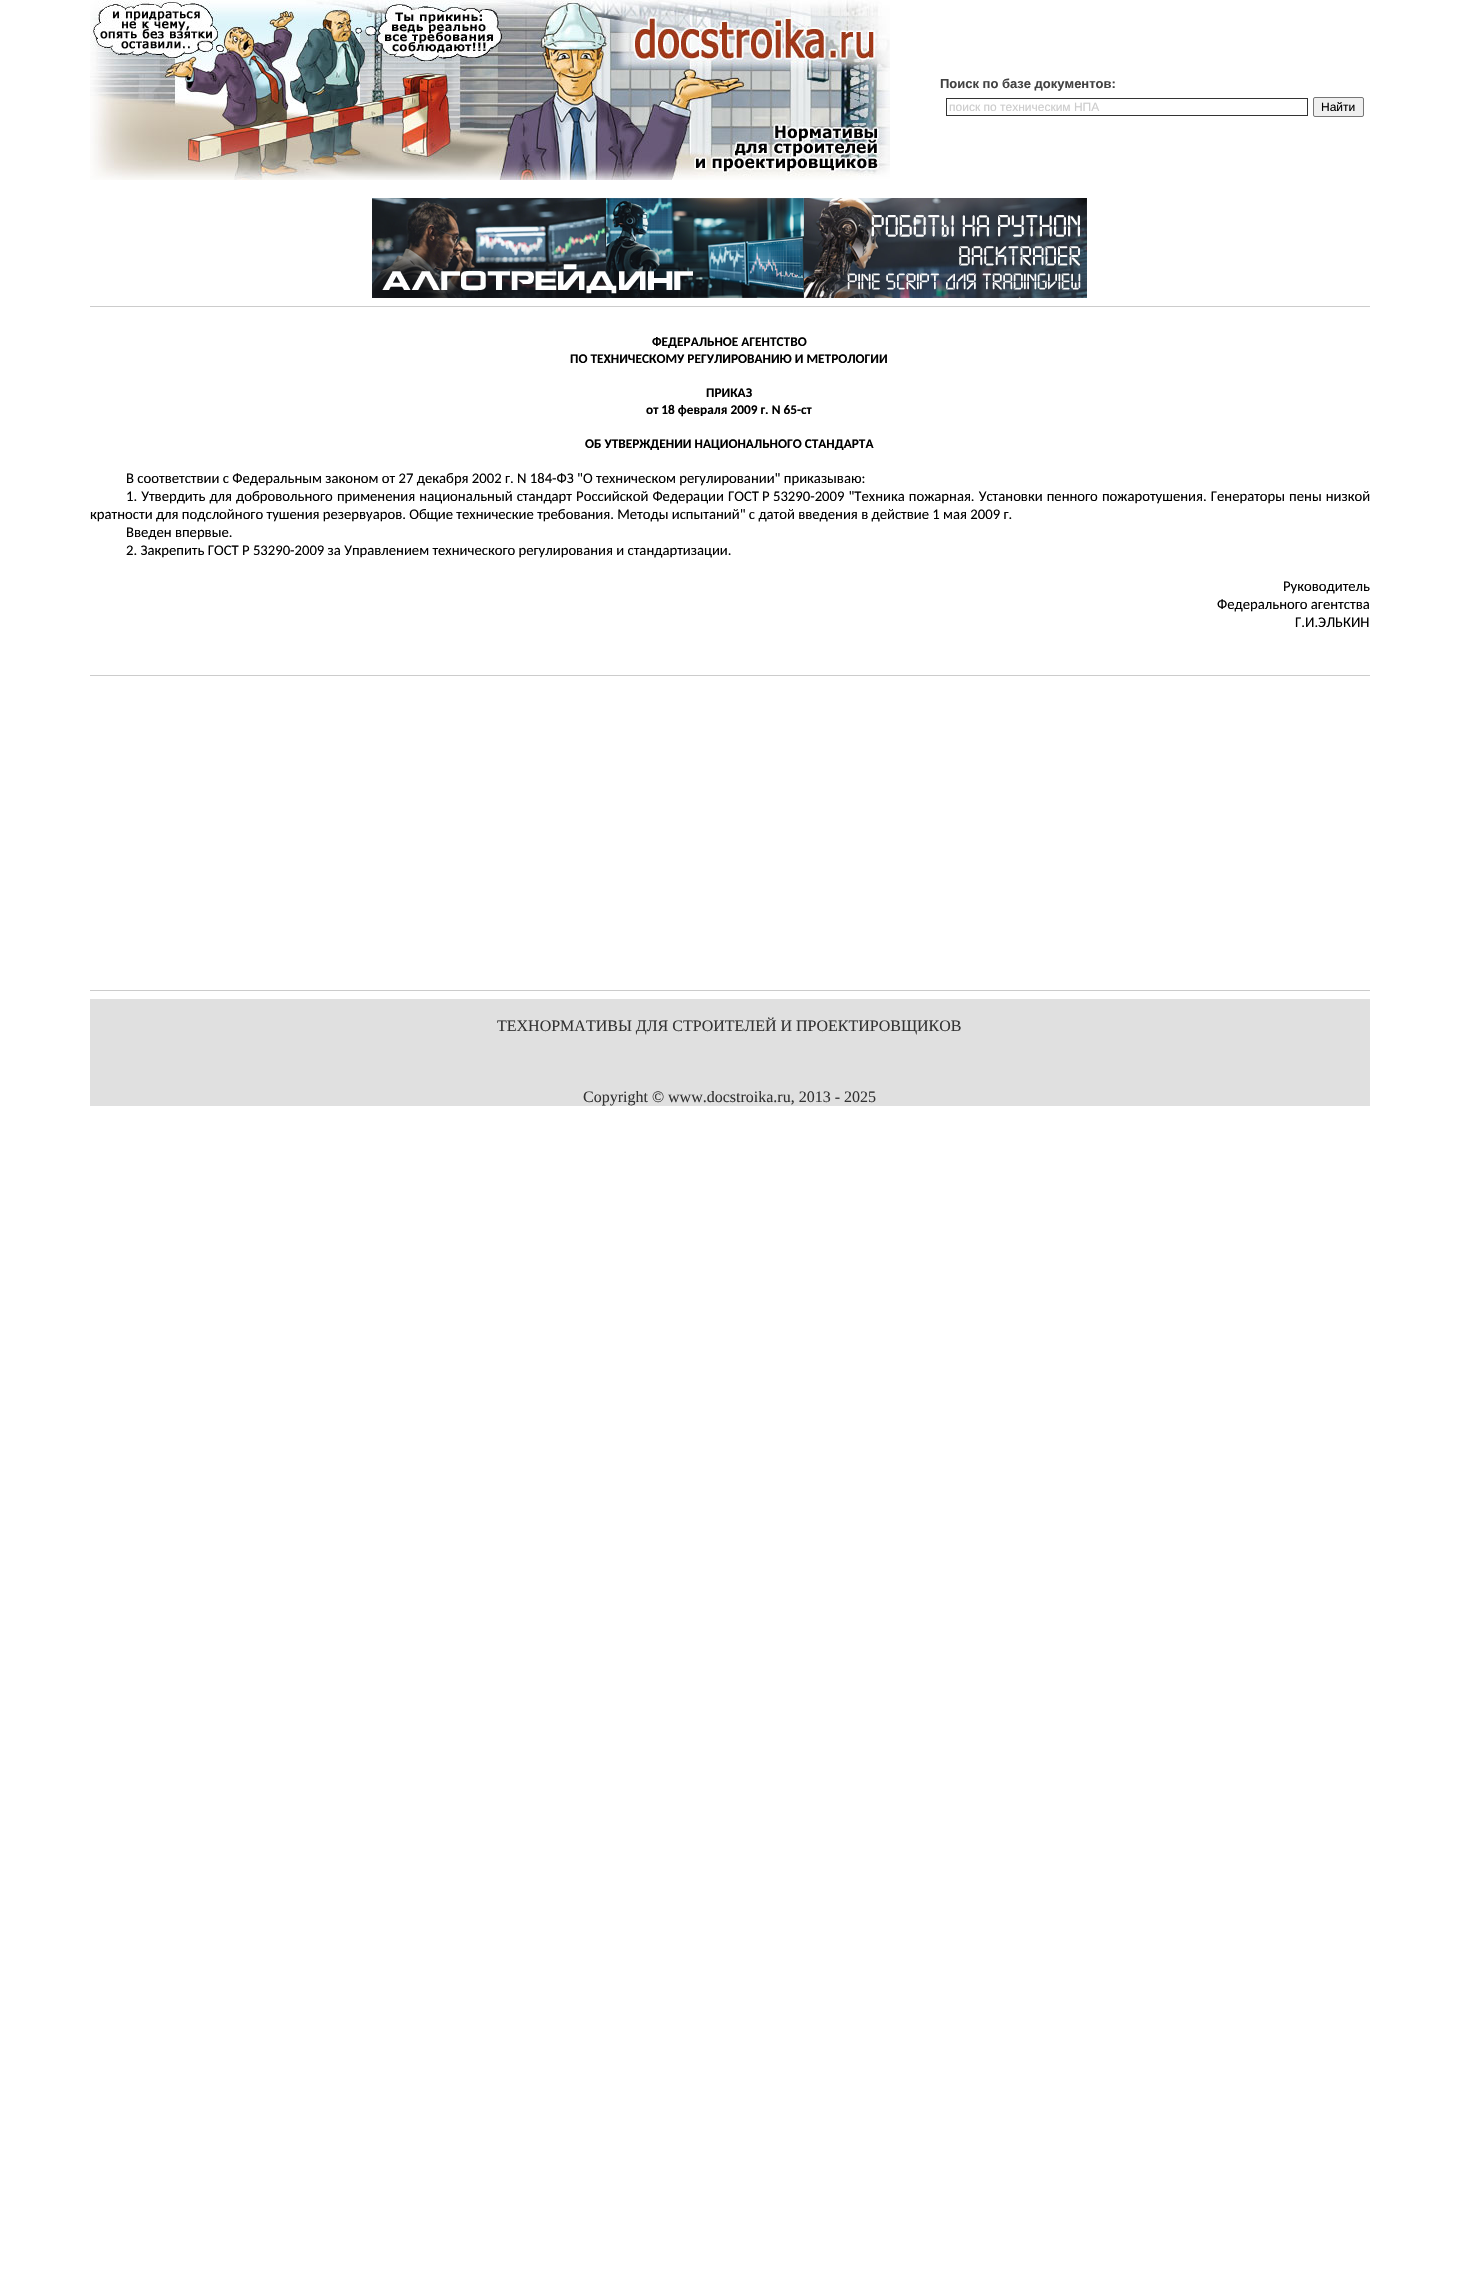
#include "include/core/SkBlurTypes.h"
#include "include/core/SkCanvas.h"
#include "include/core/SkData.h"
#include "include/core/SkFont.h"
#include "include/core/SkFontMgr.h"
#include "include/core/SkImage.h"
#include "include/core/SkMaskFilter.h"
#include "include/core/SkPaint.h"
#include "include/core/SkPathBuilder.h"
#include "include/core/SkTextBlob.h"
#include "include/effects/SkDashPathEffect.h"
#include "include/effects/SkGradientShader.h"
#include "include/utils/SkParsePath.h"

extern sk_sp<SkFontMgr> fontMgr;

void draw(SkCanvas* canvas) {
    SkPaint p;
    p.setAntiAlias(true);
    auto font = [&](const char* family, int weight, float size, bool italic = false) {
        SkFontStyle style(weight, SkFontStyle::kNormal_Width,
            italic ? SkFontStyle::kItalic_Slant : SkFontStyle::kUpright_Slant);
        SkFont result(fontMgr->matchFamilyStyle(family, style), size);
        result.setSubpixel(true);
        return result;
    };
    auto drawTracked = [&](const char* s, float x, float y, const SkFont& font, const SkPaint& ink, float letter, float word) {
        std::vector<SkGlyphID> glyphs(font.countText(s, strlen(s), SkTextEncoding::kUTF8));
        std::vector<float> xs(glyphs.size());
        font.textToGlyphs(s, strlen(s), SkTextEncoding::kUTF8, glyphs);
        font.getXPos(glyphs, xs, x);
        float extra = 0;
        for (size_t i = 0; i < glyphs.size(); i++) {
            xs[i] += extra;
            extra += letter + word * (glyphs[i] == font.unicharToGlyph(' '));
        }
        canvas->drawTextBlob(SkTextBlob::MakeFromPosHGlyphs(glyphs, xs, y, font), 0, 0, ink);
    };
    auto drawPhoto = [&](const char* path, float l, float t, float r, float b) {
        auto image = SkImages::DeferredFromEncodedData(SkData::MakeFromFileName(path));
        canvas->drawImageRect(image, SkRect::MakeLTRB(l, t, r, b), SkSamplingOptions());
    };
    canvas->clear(0xFFFFFFFF);
    drawPhoto("media/1.png", 90, 0, 890, 180);
    auto font1 = font("Liberation Sans", 700, 13);
    p.setColor(0xFF424242);
    canvas->drawString("Поиск по базе документов:", 940, 88, font1, p);
    p.setStyle(SkPaint::kStroke_Style);
    p.setStrokeWidth(1);
    p.setColor(0xFF333333);
    canvas->drawRect(SkRect::MakeLTRB(946.5f, 98.5f, 1307.5f, 115.5f), p);
    auto font2 = font("Liberation Sans", 400, 12);
    p.setStyle(SkPaint::kFill_Style);
    p.setColor(0xFFCCCCCC);
    canvas->drawString("поиск по техническим НПА", 949, 111, font2, p);
    p.setColor(0xFFEFEFEF);
    canvas->drawRoundRect(SkRect::MakeLTRB(1313.5f, 97.5f, 1363.5f, 116.5f), 1.5f, 1.5f, p);
    p.setStyle(SkPaint::kStroke_Style);
    p.setColor(0xFF767676);
    canvas->drawRoundRect(SkRect::MakeLTRB(1313.5f, 97.5f, 1363.5f, 116.5f), 1.5f, 1.5f, p);
    p.setStyle(SkPaint::kFill_Style);
    p.setColor(0xFF000000);
    canvas->drawString("Найти", 1321, 111, font2, p);
    drawPhoto("media/2.png", 372, 198, 1087, 298);
    p.setColor(0xFFCCCCCC);
    canvas->drawRect(SkRect::MakeLTRB(90, 306, 1370, 307), p);
    auto font3 = font("Carlito", 700, 13.3f);
    p.setColor(0xFF000000);
    {
        const struct { const char* s; float x, y; } items[] = {
            {"ФЕДЕРАЛЬНОЕ АГЕНТСТВО", 652, 346},
            {"ПО ТЕХНИЧЕСКОМУ РЕГУЛИРОВАНИЮ И МЕТРОЛОГИИ", 570, 363},
            {"ПРИКАЗ", 706, 397},
            {"от 18 февраля 2009 г. N 65-ст", 646, 414},
            {"ОБ УТВЕРЖДЕНИИ НАЦИОНАЛЬНОГО СТАНДАРТА", 585, 448},
        };
        for (auto [s, x, y] : items) {
            canvas->drawString(s, x, y, font3, p);
        }
    }
    auto font4 = font("Carlito", 400, 14.67f);
    canvas->drawString("В соответствии с Федеральным законом от 27 декабря 2002 г. N 184-ФЗ \"О техническом регулировании\" приказываю:", 126, 483, font4, p);
    drawTracked("1. Утвердить для добровольного применения национальный стандарт Российской Федерации ГОСТ", 126, 501, font4, p, 0, 0.75f);
    canvas->drawString("Р", 762, 501, font4, p);
    drawTracked("53290-2009 \"Техника пожарная. Установки пенного пожаротушения. Генераторы пены низкой", 773, 501, font4, p, 0, 0.75f);
    {
        const struct { const char* s; float x, y; } items[] = {
            {"кратности для подслойного тушения резервуаров. Общие технические требования. Методы испытаний\" с датой введения в действие 1 мая 2009 г.", 90, 519},
            {"Введен впервые.", 126, 537},
            {"2. Закрепить ГОСТ Р 53290-2009 за Управлением технического регулирования и стандартизации.", 126, 555},
            {"Руководитель", 1283, 591},
            {"Федерального агентства", 1217, 609},
            {"Г.И.ЭЛЬКИН", 1295, 627},
        };
        for (auto [s, x, y] : items) {
            canvas->drawString(s, x, y, font4, p);
        }
    }
    {
        const struct { float l, t, r, b; SkColor color; } items[] = {
            {90, 675, 1370, 676, 0xFFCCCCCC},
            {90, 990, 1370, 991, 0xFFCCCCCC},
            {90, 999, 1370, 1106, 0xFFE0E0E0},
        };
        for (auto [l, t, r, b, color] : items) {
            p.setColor(color);
            canvas->drawRect(SkRect::MakeLTRB(l, t, r, b), p);
        }
    }
    auto font5 = font("Liberation Serif", 400, 16);
    p.setColor(0xFF333333);
    canvas->drawString("ТЕХНОРМАТИВЫ ДЛЯ СТРОИТЕЛЕЙ И ПРОЕКТИРОВЩИКОВ", 497, 1031, font5, p);
    canvas->drawString("Copyright © www.docstroika.ru, 2013 - 2025", 583, 1102, font5, p);
}
